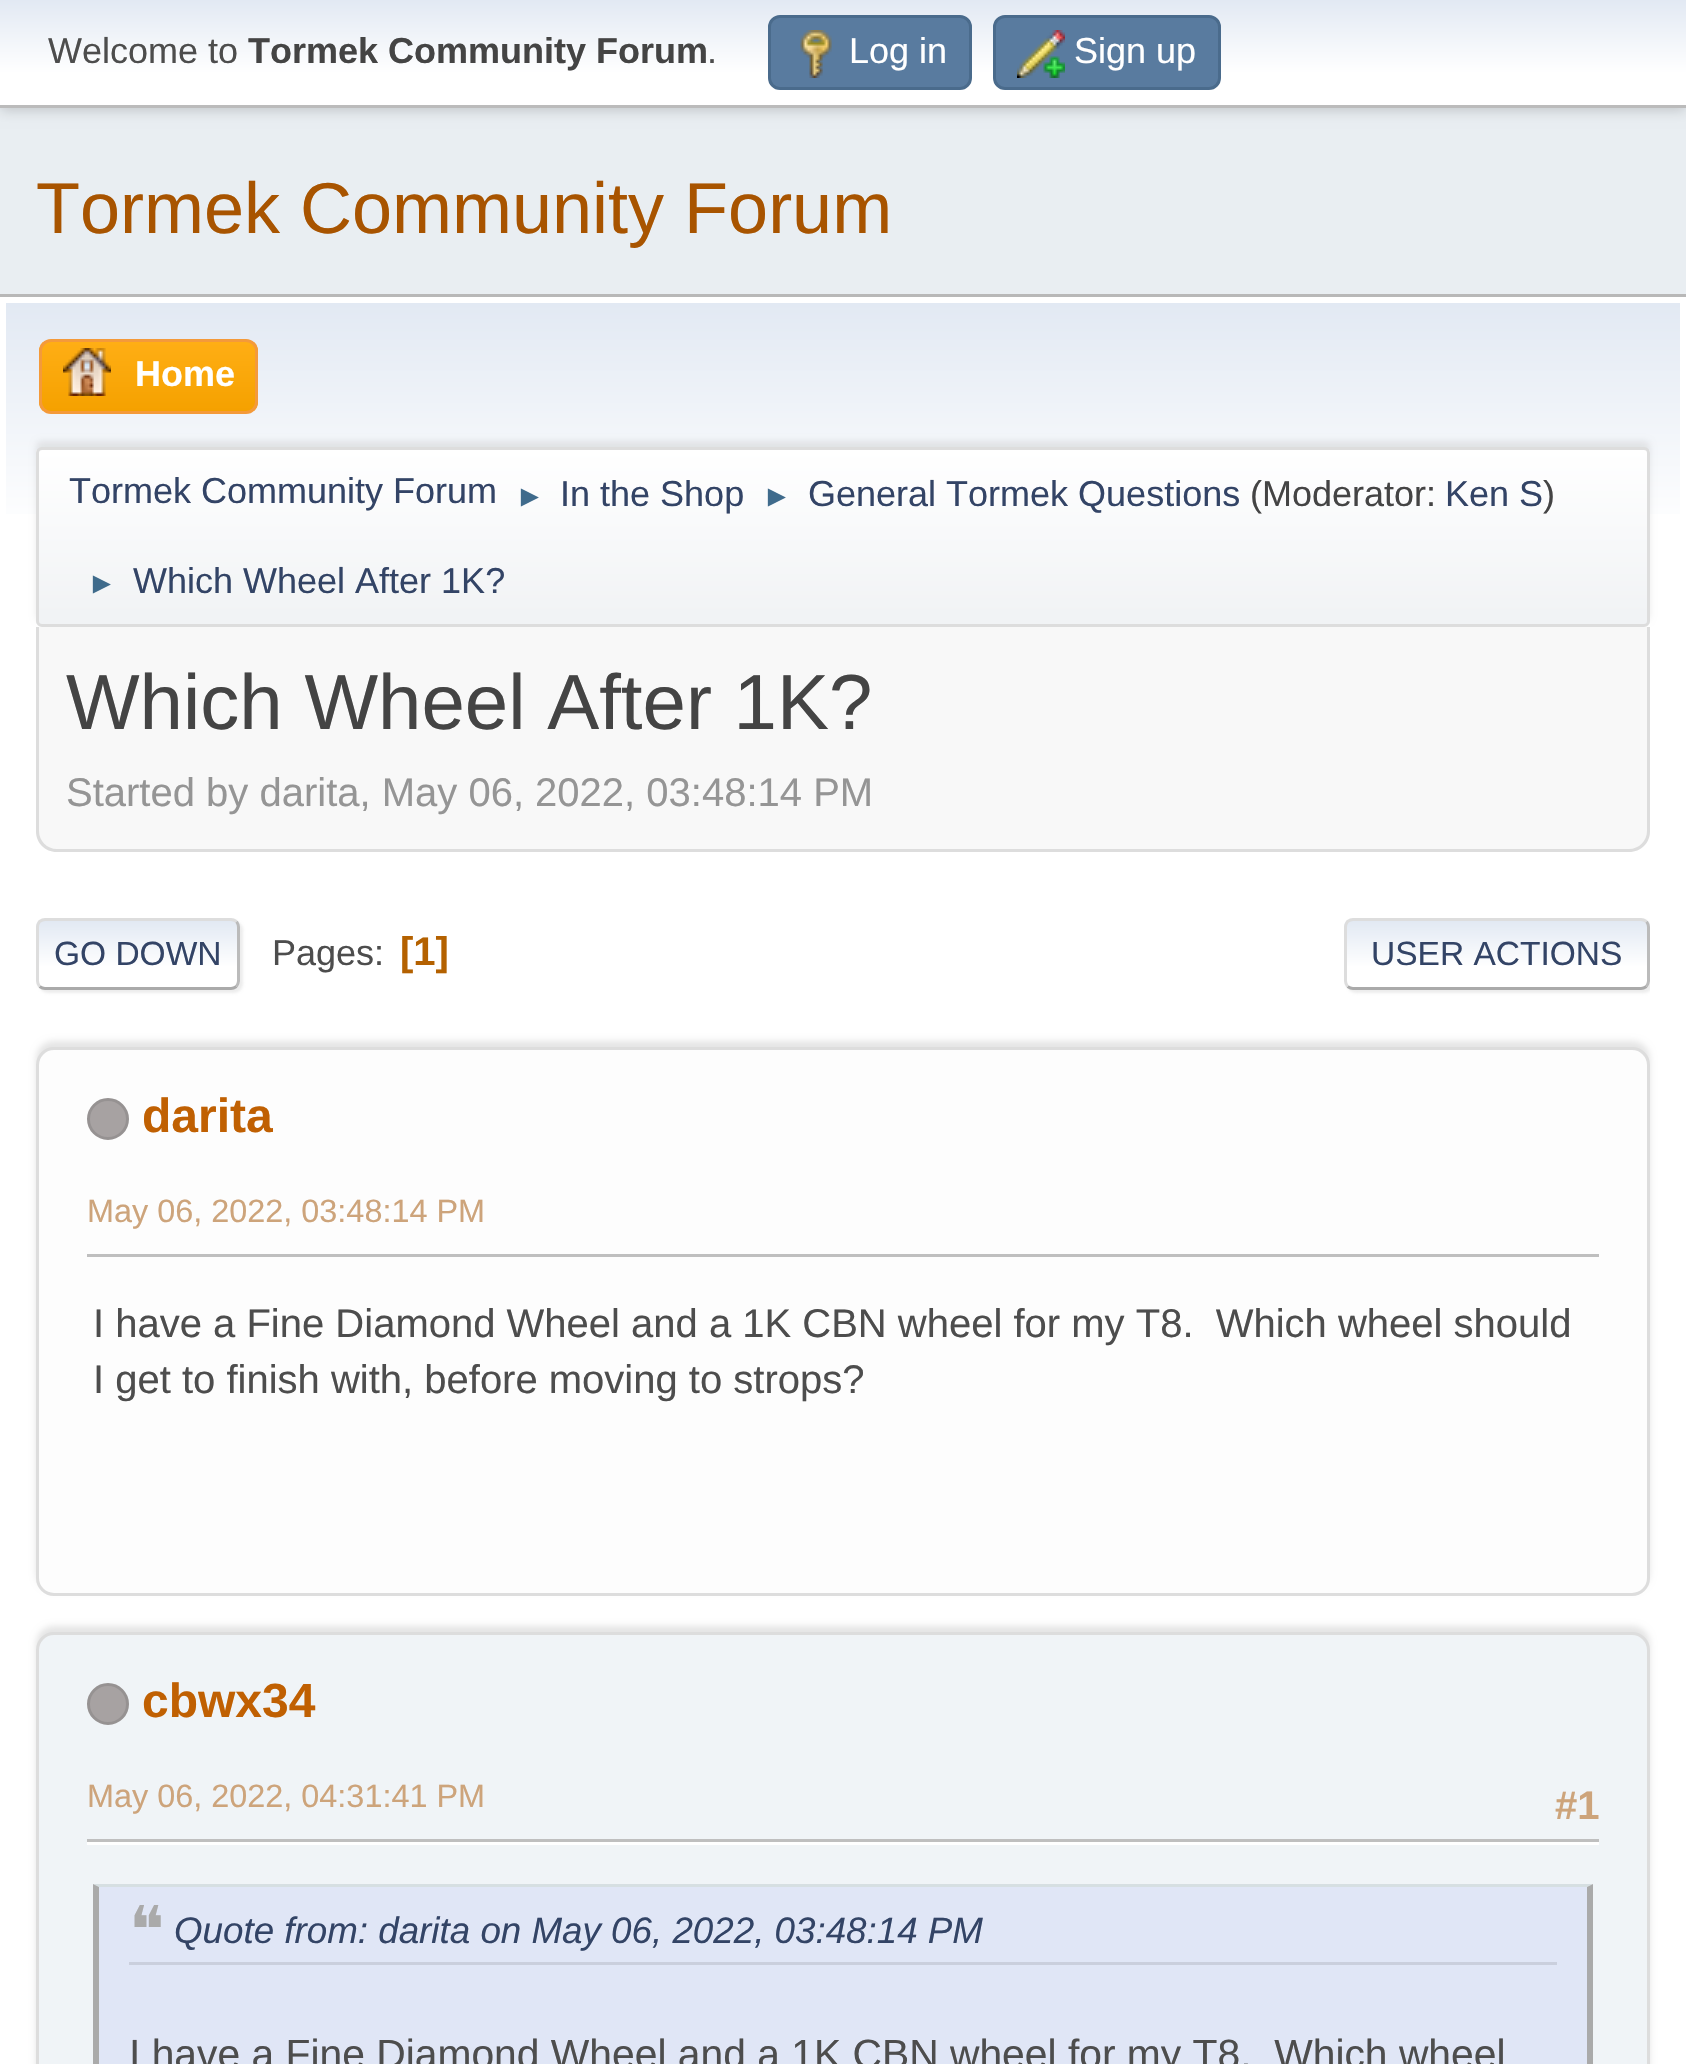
#include "include/core/SkBlurTypes.h"
#include "include/core/SkCanvas.h"
#include "include/core/SkData.h"
#include "include/core/SkFont.h"
#include "include/core/SkFontMgr.h"
#include "include/core/SkImage.h"
#include "include/core/SkMaskFilter.h"
#include "include/core/SkPaint.h"
#include "include/core/SkPathBuilder.h"
#include "include/core/SkTextBlob.h"
#include "include/effects/SkDashPathEffect.h"
#include "include/effects/SkGradientShader.h"
#include "include/utils/SkParsePath.h"

extern sk_sp<SkFontMgr> fontMgr;

void draw(SkCanvas* canvas) {
    SkPaint p;
    p.setAntiAlias(true);
    auto font = [&](const char* family, int weight, float size, bool italic = false) {
        SkFontStyle style(weight, SkFontStyle::kNormal_Width,
            italic ? SkFontStyle::kItalic_Slant : SkFontStyle::kUpright_Slant);
        SkFont result(fontMgr->matchFamilyStyle(family, style), size);
        result.setSubpixel(true);
        return result;
    };
    auto drawPhoto = [&](const char* path, float l, float t, float r, float b) {
        auto image = SkImages::DeferredFromEncodedData(SkData::MakeFromFileName(path));
        canvas->drawImageRect(image, SkRect::MakeLTRB(l, t, r, b), SkSamplingOptions());
    };
    canvas->clear(0xFFE9EEF2);
    p.setColor(0x29000000);
    p.setMaskFilter(SkMaskFilter::MakeBlur(kNormal_SkBlurStyle, 6));
    canvas->drawRect(SkRect::MakeLTRB(0, 3, 1686, 111), p);
    p.setMaskFilter(nullptr);
    {
        const SkColor colors[] = {0xFFE2E9F3, 0xFFFFFFFF};
        const float stops[] = {0, 0.7f};
        const SkPoint ends[] = {{843, 0}, {843, 105}};
        p.setShader(SkGradientShader::MakeLinear(ends, colors, stops, 2, SkTileMode::kClamp));
        p.setAlpha(255);
    }
    canvas->drawRect(SkRect::MakeLTRB(0, 0, 1686, 105), p);
    p.setShader(nullptr);
    p.setColor(0xFFBBBBBB);
    canvas->drawRect(SkRect::MakeLTRB(0, 105, 1686, 108), p);
    auto font1 = font("Liberation Sans", 400, 36);
    p.setColor(0xFF4D4D4D);
    canvas->drawString("Welcome to", 48, 63, font1, p);
    auto font2 = font("Liberation Sans", 700, 36);
    p.setColor(0xFF444444);
    canvas->drawString("Tormek Community Forum", 248, 63, font2, p);
    p.setColor(0xFF4D4D4D);
    canvas->drawString(".", 707, 63, font1, p);
    p.setColor(0xFF597B9F);
    canvas->drawRoundRect(SkRect::MakeLTRB(769.5f, 16.5f, 970.5f, 88.5f), 10.5f, 10.5f, p);
    p.setStyle(SkPaint::kStroke_Style);
    p.setStrokeWidth(3);
    p.setColor(0xFF4A6B8C);
    canvas->drawRoundRect(SkRect::MakeLTRB(769.5f, 16.5f, 970.5f, 88.5f), 10.5f, 10.5f, p);
    drawPhoto("media/1.png", 800, 30, 832, 78);
    p.setStyle(SkPaint::kFill_Style);
    p.setColor(0xFFFFFFFF);
    canvas->drawString("Log in", 849, 63, font1, p);
    p.setColor(0xFF597B9F);
    canvas->drawRoundRect(SkRect::MakeLTRB(994.5f, 16.5f, 1219.5f, 88.5f), 10.5f, 10.5f, p);
    p.setStyle(SkPaint::kStroke_Style);
    p.setColor(0xFF4A6B8C);
    canvas->drawRoundRect(SkRect::MakeLTRB(994.5f, 16.5f, 1219.5f, 88.5f), 10.5f, 10.5f, p);
    drawPhoto("media/2.png", 1017, 30, 1065, 78);
    p.setStyle(SkPaint::kFill_Style);
    p.setColor(0xFFFFFFFF);
    canvas->drawString("Sign up", 1074, 63, font1, p);
    auto font3 = font("Liberation Sans", 400, 72);
    p.setColor(0xFFA85400);
    canvas->drawString("Tormek Community Forum", 36, 233, font3, p);
    p.setColor(0xFFFFFFFF);
    canvas->drawRect(SkRect::MakeLTRB(0, 297, 1686, 2064), p);
    p.setColor(0xFFB8B8B8);
    canvas->drawRect(SkRect::MakeLTRB(0, 294, 1686, 297), p);
    {
        const SkColor colors[] = {0xFFE2E9F3, 0xFFFFFFFF};
        const float stops[] = {0, 0.7f};
        const SkPoint ends[] = {{843, 303}, {843, 633}};
        p.setShader(SkGradientShader::MakeLinear(ends, colors, stops, 2, SkTileMode::kClamp));
        p.setAlpha(255);
    }
    canvas->drawRect(SkRect::MakeLTRB(6, 303, 1680, 514), p);
    canvas->save();
    canvas->clipPath(SkPathBuilder().moveTo(51, 339).lineTo(246, 339).cubicTo(252.5f, 339, 258, 344.5f, 258, 351).lineTo(258, 402).cubicTo(258, 408.5f, 252.5f, 414, 246, 414).lineTo(51, 414).cubicTo(44.5f, 414, 39, 408.5f, 39, 402).lineTo(39, 351).cubicTo(39, 344.5f, 44.5f, 339, 51, 339).close().detach(), true);
    {
        const SkColor colors[] = {0xFFFFAE14, 0xFFF5A100};
        const float stops[] = {0, 1};
        const SkPoint ends[] = {{149, 342}, {149, 411}};
        p.setShader(SkGradientShader::MakeLinear(ends, colors, stops, 2, SkTileMode::kClamp));
        p.setAlpha(255);
    }
    canvas->drawRect(SkRect::MakeLTRB(39, 342, 258, 411), p);
    canvas->restore();
    p.setStyle(SkPaint::kStroke_Style);
    p.setShader(nullptr);
    p.setColor(0xFFF49A3A);
    canvas->drawRoundRect(SkRect::MakeLTRB(40.5f, 340.5f, 256.5f, 412.5f), 10.5f, 10.5f, p);
    drawPhoto("media/3.png", 63, 348, 111, 396);
    p.setStyle(SkPaint::kFill_Style);
    p.setColor(0xFFFFFFFF);
    canvas->drawString("Home", 135, 386, font2, p);
    p.setColor(0x14000000);
    p.setMaskFilter(SkMaskFilter::MakeBlur(kNormal_SkBlurStyle, 3));
    canvas->drawRoundRect(SkRect::MakeLTRB(36, 441, 1650, 621), 6, 6, p);
    p.setMaskFilter(nullptr);
    canvas->save();
    canvas->clipPath(SkPathBuilder().moveTo(42, 447).lineTo(1644, 447).cubicTo(1647.5f, 447, 1650, 449.5f, 1650, 453).lineTo(1650, 621).cubicTo(1650, 624.5f, 1647.5f, 627, 1644, 627).lineTo(42, 627).cubicTo(38.5f, 627, 36, 624.5f, 36, 621).lineTo(36, 453).cubicTo(36, 449.5f, 38.5f, 447, 42, 447).close().detach(), true);
    {
        const SkColor colors[] = {0xFFFFFFFF, 0xFFF1F3F5};
        const float stops[] = {0, 0.95f};
        const SkPoint ends[] = {{843, 450}, {843, 624}};
        p.setShader(SkGradientShader::MakeLinear(ends, colors, stops, 2, SkTileMode::kClamp));
        p.setAlpha(255);
    }
    canvas->drawRect(SkRect::MakeLTRB(36, 450, 1650, 624), p);
    canvas->restore();
    p.setStyle(SkPaint::kStroke_Style);
    p.setShader(nullptr);
    p.setColor(0xFFDDDDDD);
    canvas->drawRoundRect(SkRect::MakeLTRB(37.5f, 448.5f, 1648.5f, 625.5f), 4.5f, 4.5f, p);
    p.setStyle(SkPaint::kFill_Style);
    p.setColor(0xFF334466);
    canvas->drawString("Tormek Community Forum", 69, 503, font1, p);
    auto font4 = font("Liberation Sans", 400, 30);
    p.setColor(0xFF3F6B8C);
    canvas->drawString("►", 515, 506, font4, p);
    p.setColor(0xFF334466);
    canvas->drawString("In the Shop", 560, 506, font1, p);
    p.setColor(0xFF3F6B8C);
    canvas->drawString("►", 762, 506, font4, p);
    p.setColor(0xFF334466);
    canvas->drawString("General Tormek Questions", 808, 506, font1, p);
    p.setColor(0xFF444444);
    canvas->drawString("(Moderator:", 1250, 506, font1, p);
    p.setColor(0xFF334466);
    canvas->drawString("Ken S", 1445, 506, font1, p);
    p.setColor(0xFF444444);
    canvas->drawString(")", 1543, 506, font1, p);
    p.setColor(0xFF3F6B8C);
    canvas->drawString("►", 87, 593, font4, p);
    p.setColor(0xFF334466);
    canvas->drawString("Which Wheel After 1K?", 133, 593, font1, p);
    p.setColor(0xFFF8F8F8);
    canvas->drawPath(SkPathBuilder().moveTo(36, 627).lineTo(1650, 627).lineTo(1650, 831).cubicTo(1650, 842.5f, 1640.5f, 852, 1629, 852).lineTo(57, 852).cubicTo(45.5f, 852, 36, 842.5f, 36, 831).close().detach(), p);
    p.setColor(0xFFDDDDDD);
    canvas->drawPath(SkPathBuilder(SkPathFillType::kEvenOdd).moveTo(36, 627).lineTo(1650, 627).lineTo(1650, 831).cubicTo(1650, 843, 1641, 852, 1629, 852).lineTo(57, 852).cubicTo(45, 852, 36, 843, 36, 831).close().moveTo(39, 627).lineTo(1647, 627).lineTo(1647, 831).cubicTo(1647, 841, 1639, 849, 1629, 849).lineTo(57, 849).cubicTo(47, 849, 39, 841, 39, 831).close().detach(), p);
    auto font5 = font("Liberation Sans", 400, 78);
    p.setColor(0xFF444444);
    canvas->drawString("Which Wheel After 1K?", 66, 729, font5, p);
    auto font6 = font("Liberation Sans", 400, 40);
    p.setColor(0xFF959595);
    canvas->drawString("Started by darita, May 06, 2022, 03:48:14 PM", 66, 806, font6, p);
    p.setColor(0x91DDDDDD);
    p.setMaskFilter(SkMaskFilter::MakeBlur(kNormal_SkBlurStyle, 1.5f));
    canvas->drawRoundRect(SkRect::MakeLTRB(39, 921, 243, 993), 9, 9, p);
    p.setMaskFilter(nullptr);
    canvas->save();
    canvas->clipPath(SkPathBuilder().moveTo(45, 918).lineTo(231, 918).cubicTo(236, 918, 240, 922, 240, 927).lineTo(240, 981).cubicTo(240, 986, 236, 990, 231, 990).lineTo(45, 990).cubicTo(40, 990, 36, 986, 36, 981).lineTo(36, 927).cubicTo(36, 922, 40, 918, 45, 918).close().detach(), true);
    {
        const SkColor colors[] = {0xFFE2E9F3, 0xFFFFFFFF};
        const float stops[] = {0, 0.7f};
        const SkPoint ends[] = {{138, 921}, {138, 987}};
        p.setShader(SkGradientShader::MakeLinear(ends, colors, stops, 2, SkTileMode::kClamp));
        p.setAlpha(255);
    }
    canvas->drawRect(SkRect::MakeLTRB(36, 921, 240, 987), p);
    canvas->restore();
    p.setStyle(SkPaint::kStroke_Style);
    p.setShader(nullptr);
    p.setColor(0xFFBBBBBB);
    canvas->drawPath(SkPathBuilder().moveTo(236.5f, 921.5f).cubicTo(237.5f, 923, 238.5f, 925, 238.5f, 927).lineTo(238.5f, 981).cubicTo(238.5f, 983, 237.5f, 985, 236.5f, 986.5f).detach(), p);
    p.setColor(0xFFAAAAAA);
    canvas->drawPath(SkPathBuilder().moveTo(236.5f, 986.5f).cubicTo(235, 987.5f, 233, 988.5f, 231, 988.5f).lineTo(45, 988.5f).cubicTo(43, 988.5f, 41, 987.5f, 39.5f, 986.5f).detach(), p);
    p.setColor(0xFFDDDDDD);
    canvas->drawPath(SkPathBuilder().moveTo(39.5f, 986.5f).cubicTo(38.5f, 985, 37.5f, 983, 37.5f, 981).lineTo(37.5f, 927).cubicTo(37.5f, 925, 38.5f, 923, 39.5f, 921.5f).cubicTo(41, 920.5f, 43, 919.5f, 45, 919.5f).lineTo(231, 919.5f).cubicTo(233, 919.5f, 235, 920.5f, 236.5f, 921.5f).detach(), p);
    auto font7 = font("Liberation Sans", 400, 33.5f);
    p.setStyle(SkPaint::kFill_Style);
    p.setColor(0xFF334466);
    canvas->drawString("GO DOWN", 54, 965, font7, p);
    p.setColor(0xFF4D4D4D);
    canvas->drawString("Pages:", 272, 965, font1, p);
    auto font8 = font("Liberation Sans", 700, 40);
    p.setColor(0xFFB46100);
    canvas->drawString("[1]", 400, 965, font8, p);
    canvas->save();
    canvas->clipRect(SkRect::MakeLTRB(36, 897, 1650, 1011));
    p.setColor(0x91DDDDDD);
    p.setMaskFilter(SkMaskFilter::MakeBlur(kNormal_SkBlurStyle, 1.5f));
    canvas->drawRoundRect(SkRect::MakeLTRB(1347, 921, 1653, 993), 9, 9, p);
    p.setMaskFilter(nullptr);
    canvas->restore();
    canvas->save();
    canvas->clipPath(SkPathBuilder().moveTo(1353, 918).lineTo(1641, 918).cubicTo(1646, 918, 1650, 922, 1650, 927).lineTo(1650, 981).cubicTo(1650, 986, 1646, 990, 1641, 990).lineTo(1353, 990).cubicTo(1348, 990, 1344, 986, 1344, 981).lineTo(1344, 927).cubicTo(1344, 922, 1348, 918, 1353, 918).close().detach(), true);
    {
        const SkColor colors[] = {0xFFE2E9F3, 0xFFFFFFFF};
        const float stops[] = {0, 0.7f};
        const SkPoint ends[] = {{1497, 921}, {1497, 987}};
        p.setShader(SkGradientShader::MakeLinear(ends, colors, stops, 2, SkTileMode::kClamp));
        p.setAlpha(255);
    }
    canvas->drawRect(SkRect::MakeLTRB(1344, 921, 1650, 987), p);
    canvas->restore();
    p.setStyle(SkPaint::kStroke_Style);
    p.setShader(nullptr);
    p.setColor(0xFFBBBBBB);
    canvas->drawPath(SkPathBuilder().moveTo(1646.5f, 921.5f).cubicTo(1647.5f, 923, 1648.5f, 925, 1648.5f, 927).lineTo(1648.5f, 981).cubicTo(1648.5f, 983, 1647.5f, 985, 1646.5f, 986.5f).detach(), p);
    p.setColor(0xFFAAAAAA);
    canvas->drawPath(SkPathBuilder().moveTo(1646.5f, 986.5f).cubicTo(1645, 987.5f, 1643, 988.5f, 1641, 988.5f).lineTo(1353, 988.5f).cubicTo(1351, 988.5f, 1349, 987.5f, 1347.5f, 986.5f).detach(), p);
    p.setColor(0xFFDDDDDD);
    canvas->drawPath(SkPathBuilder().moveTo(1347.5f, 986.5f).cubicTo(1346.5f, 985, 1345.5f, 983, 1345.5f, 981).lineTo(1345.5f, 927).cubicTo(1345.5f, 925, 1346.5f, 923, 1347.5f, 921.5f).cubicTo(1349, 920.5f, 1351, 919.5f, 1353, 919.5f).lineTo(1641, 919.5f).cubicTo(1643, 919.5f, 1645, 920.5f, 1646.5f, 921.5f).detach(), p);
    p.setStyle(SkPaint::kFill_Style);
    p.setColor(0xFF334466);
    canvas->drawString("USER ACTIONS", 1371, 965, font7, p);
    p.setColor(0x1A000000);
    p.setMaskFilter(SkMaskFilter::MakeBlur(kNormal_SkBlurStyle, 3));
    canvas->drawRoundRect(SkRect::MakeLTRB(36, 1041, 1650, 1590), 18, 18, p);
    p.setMaskFilter(nullptr);
    p.setColor(0xFFFDFDFD);
    canvas->drawRoundRect(SkRect::MakeLTRB(37.5f, 1048.5f, 1648.5f, 1594.5f), 16.5f, 16.5f, p);
    p.setStyle(SkPaint::kStroke_Style);
    p.setColor(0xFFDDDDDD);
    canvas->drawRoundRect(SkRect::MakeLTRB(37.5f, 1048.5f, 1648.5f, 1594.5f), 16.5f, 16.5f, p);
    p.setStyle(SkPaint::kFill_Style);
    p.setColor(0xFFA7A2A2);
    canvas->drawCircle(108, 1119, 19.5f, p);
    p.setStyle(SkPaint::kStroke_Style);
    p.setColor(0xFF969292);
    canvas->drawCircle(108, 1119, 19.5f, p);
    auto font9 = font("Liberation Sans", 700, 48);
    p.setStyle(SkPaint::kFill_Style);
    p.setColor(0xFFC06002);
    canvas->drawString("darita", 142, 1132, font9, p);
    auto font10 = font("Liberation Sans", 400, 32.4f);
    p.setColor(0xFFCDA47B);
    canvas->drawString("May 06, 2022, 03:48:14 PM", 87, 1222, font10, p);
    p.setColor(0xFFBFBFBF);
    canvas->drawRect(SkRect::MakeLTRB(87, 1254, 1599, 1257), p);
    p.setColor(0xFF4D4D4D);
    canvas->drawString("I have a Fine Diamond Wheel and a 1K CBN wheel for my T8.  Which wheel should", 93, 1337, font6, p);
    canvas->drawString("I get to finish with, before moving to strops?", 93, 1393, font6, p);
    p.setColor(0x1A000000);
    p.setMaskFilter(SkMaskFilter::MakeBlur(kNormal_SkBlurStyle, 3));
    canvas->drawRoundRect(SkRect::MakeLTRB(36, 1626, 1650, 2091), 18, 18, p);
    p.setMaskFilter(nullptr);
    p.setColor(0xFFF0F4F7);
    canvas->drawRoundRect(SkRect::MakeLTRB(37.5f, 1633.5f, 1648.5f, 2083.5f), 16.5f, 16.5f, p);
    p.setStyle(SkPaint::kStroke_Style);
    p.setColor(0xFFDDDDDD);
    canvas->drawRoundRect(SkRect::MakeLTRB(37.5f, 1633.5f, 1648.5f, 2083.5f), 16.5f, 16.5f, p);
    p.setStyle(SkPaint::kFill_Style);
    p.setColor(0xFFA7A2A2);
    canvas->drawCircle(108, 1704, 19.5f, p);
    p.setStyle(SkPaint::kStroke_Style);
    p.setColor(0xFF969292);
    canvas->drawCircle(108, 1704, 19.5f, p);
    p.setStyle(SkPaint::kFill_Style);
    p.setColor(0xFFC06002);
    canvas->drawString("cbwx34", 142, 1717, font9, p);
    p.setColor(0xFFCDA47B);
    canvas->drawString("May 06, 2022, 04:31:41 PM", 87, 1807, font10, p);
    canvas->drawString("#1", 1555, 1819, font8, p);
    {
        const struct { float l, t, r, b; SkColor color; } items[] = {
            {87, 1842, 1599, 1845, 0xFFFFFFFF},
            {87, 1839, 1599, 1842, 0xFFBFBFBF},
            {99, 1887, 1587, 2064, 0xFFE0E6F6},
        };
        for (auto [l, t, r, b, color] : items) {
            p.setColor(color);
            canvas->drawRect(SkRect::MakeLTRB(l, t, r, b), p);
        }
    }
    p.setColor(0xFFD6DFE2);
    canvas->drawPath(SkPathBuilder().moveTo(93, 1884).lineTo(1593, 1884).lineTo(1587, 1887).lineTo(99, 1887).close().detach(), p);
    p.setColor(0xFFAAAAAA);
    canvas->drawPath(SkPathBuilder().moveTo(1593, 1884).lineTo(1593, 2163).lineTo(1587, 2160).lineTo(1587, 1887).close().detach(), p);
    canvas->drawPath(SkPathBuilder().moveTo(93, 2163).lineTo(93, 1884).lineTo(99, 1887).lineTo(99, 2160).close().detach(), p);
    p.setColor(0xFFCACFDD);
    canvas->drawRect(SkRect::MakeLTRB(129, 1962, 1557, 1965), p);
    auto font11 = font("DejaVu Sans", 400, 66);
    p.setColor(0xFFAAAAAA);
    canvas->drawString("❝", 129, 1953, font11, p);
    auto font12 = font("Liberation Sans", 400, 36.75f, true);
    p.setColor(0xFF334466);
    canvas->drawString("Quote from: darita on May 06, 2022, 03:48:14 PM", 174, 1943, font12, p);
    auto font13 = font("Liberation Sans", 400, 40.8f);
    p.setColor(0xFF4D4D4D);
    canvas->drawString("I have a Fine Diamond Wheel and a 1K CBN wheel for my T8.  Which wheel", 129, 2068, font13, p);
}
